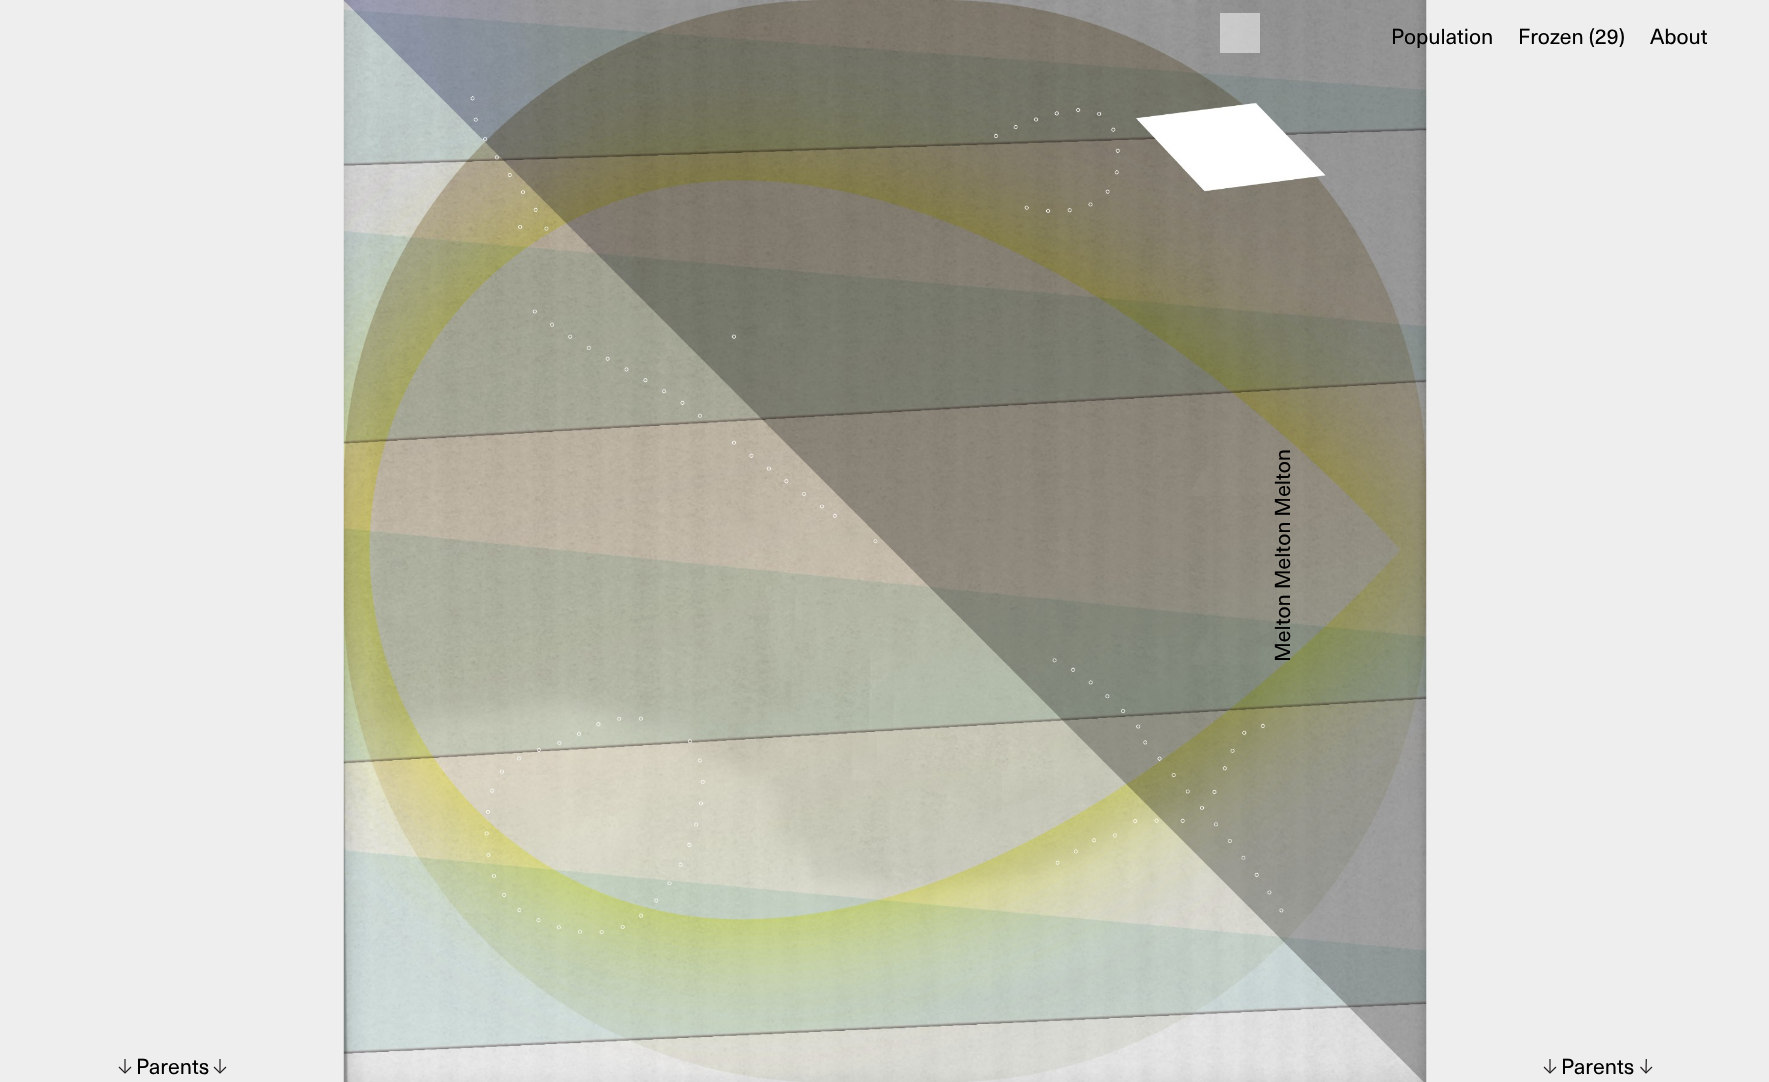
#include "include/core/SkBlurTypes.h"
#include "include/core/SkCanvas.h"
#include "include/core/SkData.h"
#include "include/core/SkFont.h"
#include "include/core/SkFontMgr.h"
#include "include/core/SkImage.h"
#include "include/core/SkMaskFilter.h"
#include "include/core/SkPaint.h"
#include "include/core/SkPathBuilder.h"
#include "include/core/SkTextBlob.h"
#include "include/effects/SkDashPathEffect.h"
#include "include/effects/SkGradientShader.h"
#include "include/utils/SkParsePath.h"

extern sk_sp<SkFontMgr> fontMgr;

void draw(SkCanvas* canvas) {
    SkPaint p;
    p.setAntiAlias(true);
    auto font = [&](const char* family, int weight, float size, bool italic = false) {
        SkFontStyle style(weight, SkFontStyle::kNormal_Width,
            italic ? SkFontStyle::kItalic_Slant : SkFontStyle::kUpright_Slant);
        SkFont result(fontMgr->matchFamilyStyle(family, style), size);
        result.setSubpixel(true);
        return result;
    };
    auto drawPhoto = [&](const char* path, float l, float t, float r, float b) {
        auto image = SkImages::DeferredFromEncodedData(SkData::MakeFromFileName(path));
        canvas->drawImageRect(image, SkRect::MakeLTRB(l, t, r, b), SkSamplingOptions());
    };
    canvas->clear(0xFFEEEEEE);
    drawPhoto("media/1.png", 343, 0, 1427, 1082);
    auto font1 = font("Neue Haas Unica", 400, 21.25f);
    p.setColor(0xFF000000);
    {
        const struct { const char* s; float x, y; } items[] = {
            {"Population", 1391, 44},
            {"Frozen (29)", 1518, 44},
            {"About", 1650, 44},
        };
        for (auto [s, x, y] : items) {
            canvas->drawString(s, x, y, font1, p);
        }
    }
    p.setColor(0x80FFFFFF);
    canvas->drawRect(SkRect::MakeLTRB(1220, 13, 1260, 53), p);
    p.setColor(0xFF000000);
    canvas->save();
    canvas->rotate(-90, 1290, 662);
    canvas->drawString("Melton Melton Melton", 1290, 662, font1, p);
    canvas->restore();
    p.setStyle(SkPaint::kStroke_Style);
    p.setStrokeWidth(1.2f);
    p.setColor(0xFF231F20);
    canvas->drawPath(SkPathBuilder().moveTo(131, 1067).lineTo(125, 1073).lineTo(119, 1067).detach(), p);
    canvas->save();
    canvas->clipRect(SkRect::MakeLTRB(119, 1059, 131, 1074));
    canvas->drawPath(SkPathBuilder().moveTo(125, 1073).lineTo(125, 1049.5f).detach(), p);
    canvas->restore();
    p.setStyle(SkPaint::kFill_Style);
    p.setColor(0xFF000000);
    canvas->drawString("Parents", 136, 1074, font1, p);
    p.setStyle(SkPaint::kStroke_Style);
    p.setColor(0xFF231F20);
    canvas->drawPath(SkPathBuilder().moveTo(226, 1067).lineTo(220, 1073).lineTo(214, 1067).detach(), p);
    canvas->save();
    canvas->clipRect(SkRect::MakeLTRB(214, 1059, 226, 1074));
    canvas->drawPath(SkPathBuilder().moveTo(220, 1073).lineTo(220, 1049.5f).detach(), p);
    canvas->restore();
    canvas->drawPath(SkPathBuilder().moveTo(1556, 1067).lineTo(1550, 1073).lineTo(1544, 1067).detach(), p);
    canvas->save();
    canvas->clipRect(SkRect::MakeLTRB(1544, 1059, 1556, 1074));
    canvas->drawPath(SkPathBuilder().moveTo(1550, 1073).lineTo(1550, 1049.5f).detach(), p);
    canvas->restore();
    p.setStyle(SkPaint::kFill_Style);
    p.setColor(0xFF000000);
    canvas->drawString("Parents", 1561, 1074, font1, p);
    p.setStyle(SkPaint::kStroke_Style);
    p.setColor(0xFF231F20);
    canvas->drawPath(SkPathBuilder().moveTo(1652, 1067).lineTo(1646, 1073).lineTo(1640.5f, 1067).detach(), p);
    canvas->save();
    canvas->clipRect(SkRect::MakeLTRB(1640, 1059, 1653, 1074));
    canvas->drawPath(SkPathBuilder().moveTo(1646, 1073).lineTo(1646.5f, 1049.5f).detach(), p);
    canvas->restore();
}
